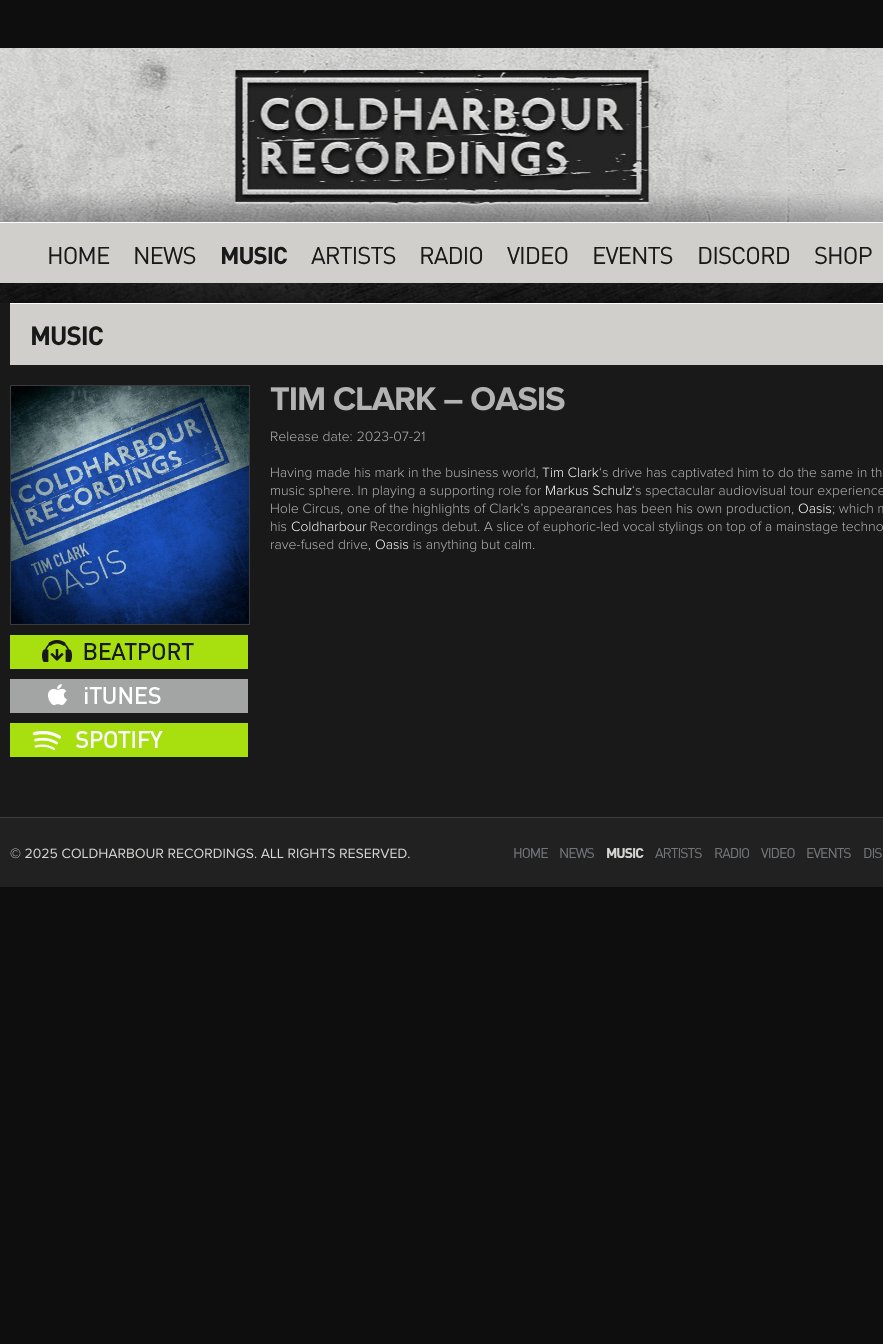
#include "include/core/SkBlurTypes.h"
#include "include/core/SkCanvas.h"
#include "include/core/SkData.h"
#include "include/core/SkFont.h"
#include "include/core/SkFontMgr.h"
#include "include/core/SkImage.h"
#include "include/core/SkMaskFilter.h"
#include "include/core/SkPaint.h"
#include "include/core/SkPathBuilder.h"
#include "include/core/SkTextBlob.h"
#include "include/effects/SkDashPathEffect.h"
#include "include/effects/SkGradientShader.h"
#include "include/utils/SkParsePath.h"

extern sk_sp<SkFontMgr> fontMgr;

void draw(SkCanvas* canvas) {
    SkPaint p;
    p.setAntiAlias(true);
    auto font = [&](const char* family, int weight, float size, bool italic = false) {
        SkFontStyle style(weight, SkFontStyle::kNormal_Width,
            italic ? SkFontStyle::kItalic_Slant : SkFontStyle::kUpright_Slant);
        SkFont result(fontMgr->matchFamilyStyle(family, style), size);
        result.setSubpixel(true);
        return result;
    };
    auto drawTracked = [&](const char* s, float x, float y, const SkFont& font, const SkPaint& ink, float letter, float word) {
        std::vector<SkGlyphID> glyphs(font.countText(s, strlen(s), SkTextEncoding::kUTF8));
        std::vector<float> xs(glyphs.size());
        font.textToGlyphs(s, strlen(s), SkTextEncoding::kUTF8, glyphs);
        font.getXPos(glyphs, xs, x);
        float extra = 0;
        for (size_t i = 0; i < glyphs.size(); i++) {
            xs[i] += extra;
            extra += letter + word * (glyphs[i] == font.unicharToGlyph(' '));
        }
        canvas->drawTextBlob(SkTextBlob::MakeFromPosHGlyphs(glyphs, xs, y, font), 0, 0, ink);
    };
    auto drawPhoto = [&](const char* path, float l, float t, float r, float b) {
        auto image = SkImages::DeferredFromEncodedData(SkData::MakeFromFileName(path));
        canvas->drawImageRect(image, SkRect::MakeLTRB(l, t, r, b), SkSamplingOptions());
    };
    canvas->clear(0xFF0E0E0E);
    drawPhoto("media/1.png", 0, 283, 883, 303);
    drawPhoto("media/2.png", 0, 48, 883, 222);
    p.setColor(0xFF000000);
    p.setMaskFilter(SkMaskFilter::MakeBlur(kNormal_SkBlurStyle, 30));
    canvas->drawRect(SkRect::MakeLTRB(0, 303, 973, 817), p);
    p.setMaskFilter(nullptr);
    p.setColor(0xFFD0CFCB);
    canvas->drawRect(SkRect::MakeLTRB(0, 223, 883, 283), p);
    p.setColor(0xFFFFFFFF);
    canvas->drawRect(SkRect::MakeLTRB(0, 222, 883, 223), p);
    auto font1 = font("DIN", 400, 24);
    p.setColor(0xFF191919);
    drawTracked("HOME", 47, 264, font1, p, -1, 0);
    drawTracked("NEWS", 133, 264, font1, p, -1, 0);
    auto font2 = font("DIN", 700, 24);
    drawTracked("MUSIC", 220, 264, font2, p, -1, 0);
    {
        const struct { const char* s; float x, y; } items[] = {
            {"ARTISTS", 311, 264},
            {"RADIO", 419, 264},
            {"VIDEO", 507, 264},
            {"EVENTS", 592, 264},
            {"DISCORD", 697, 264},
            {"SHOP", 814, 264},
        };
        for (auto [s, x, y] : items) {
            drawTracked(s, x, y, font1, p, -1, 0);
        }
    }
    {
        const struct { float l, t, r, b; SkColor color; } items[] = {
            {0, 303, 883, 817, 0xFF191919},
            {10, 304, 883, 365, 0xFFD0CFCB},
            {10, 303, 883, 304, 0xFFFFFFFF},
        };
        for (auto [l, t, r, b, color] : items) {
            p.setColor(color);
            canvas->drawRect(SkRect::MakeLTRB(l, t, r, b), p);
        }
    }
    auto font3 = font("DIN", 700, 26);
    p.setColor(0xFF191919);
    drawTracked("MUSIC", 30, 345, font3, p, -1, 0);
    p.setStyle(SkPaint::kStroke_Style);
    p.setStrokeWidth(1);
    p.setColor(0xFF3B3B3B);
    canvas->drawRect(SkRect::MakeLTRB(10.5f, 385.5f, 249.5f, 624.5f), p);
    drawPhoto("media/3.png", 11, 386, 249, 624);
    p.setStyle(SkPaint::kFill_Style);
    p.setColor(0xFFA8E00F);
    canvas->drawRect(SkRect::MakeLTRB(10, 635, 248, 669), p);
    drawPhoto("media/4.png", 42, 640, 194, 662);
    p.setColor(0xFFA2A5A4);
    canvas->drawRect(SkRect::MakeLTRB(10, 679, 248, 713), p);
    drawPhoto("media/5.png", 48, 684, 161, 705);
    p.setColor(0xFFA8E00F);
    canvas->drawRect(SkRect::MakeLTRB(10, 723, 248, 757), p);
    drawPhoto("media/6.png", 33, 731, 163, 750);
    drawPhoto("media/7.png", 270, 386, 565, 411);
    drawPhoto("media/8.png", 271, 431, 352, 442);
    drawPhoto("media/9.png", 357, 431, 425, 442);
    drawPhoto("media/10.png", 271, 467, 538, 480);
    drawPhoto("media/11.png", 542, 467, 599, 478);
    drawPhoto("media/12.png", 599, 467, 882, 480);
    drawPhoto("media/13.png", 271, 485, 541, 498);
    drawPhoto("media/14.png", 546, 485, 632, 496);
    drawPhoto("media/15.png", 632, 485, 883, 498);
    drawPhoto("media/16.png", 271, 503, 794, 516);
    drawPhoto("media/17.png", 798, 503, 832, 514);
    drawPhoto("media/18.png", 832, 503, 883, 515);
    drawPhoto("media/19.png", 271, 521, 287, 532);
    drawPhoto("media/20.png", 291, 521, 367, 532);
    drawPhoto("media/21.png", 370, 521, 883, 534);
    drawPhoto("media/22.png", 271, 539, 371, 551);
    drawPhoto("media/17.png", 375, 539, 409, 550);
    drawPhoto("media/23.png", 413, 539, 535, 552);
    p.setColor(0xFF212121);
    canvas->drawRect(SkRect::MakeLTRB(0, 818, 883, 887), p);
    p.setColor(0xFF3E3E3E);
    canvas->drawRect(SkRect::MakeLTRB(0, 817, 883, 818), p);
    drawPhoto("media/24.png", 10, 848, 410, 859);
    auto font4 = font("DIN", 400, 14);
    p.setColor(0xFF747679);
    drawTracked("HOME", 513, 858, font4, p, -1, 0);
    drawTracked("NEWS", 559, 858, font4, p, -1, 0);
    auto font5 = font("DIN", 700, 14);
    p.setColor(0xFFD6D6D4);
    drawTracked("MUSIC", 606, 858, font5, p, -1, 0);
    p.setColor(0xFF747679);
    {
        const struct { const char* s; float x, y; } items[] = {
            {"ARTISTS", 655, 858},
            {"RADIO", 714, 858},
            {"VIDEO", 761, 858},
            {"EVENTS", 806, 858},
            {"DIS", 863, 858},
        };
        for (auto [s, x, y] : items) {
            drawTracked(s, x, y, font4, p, -1, 0);
        }
    }
}
